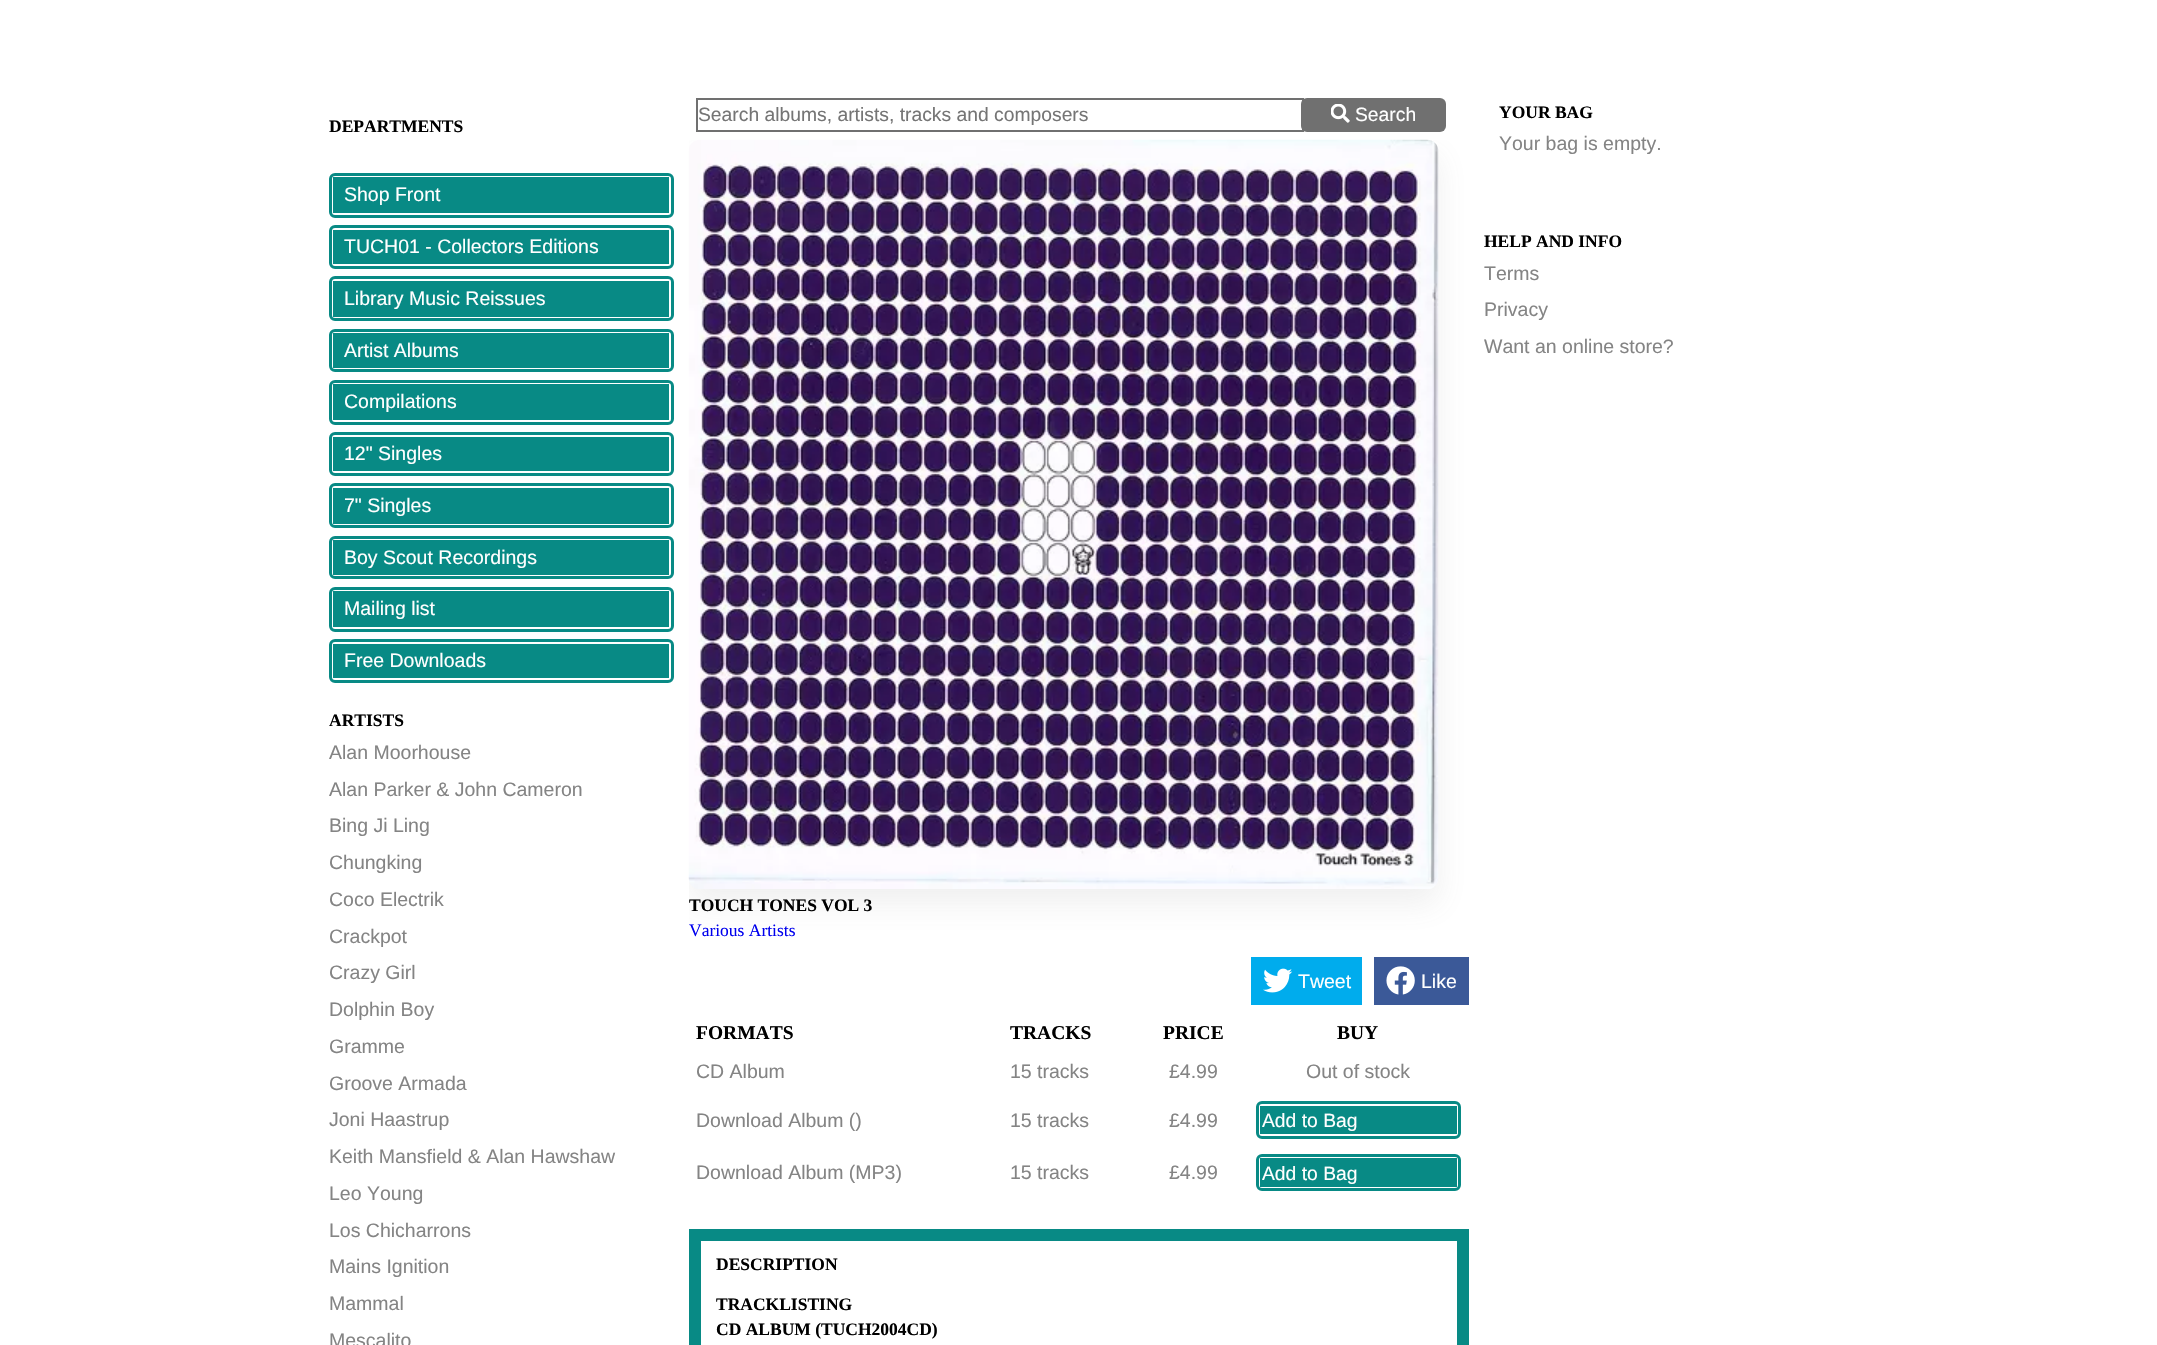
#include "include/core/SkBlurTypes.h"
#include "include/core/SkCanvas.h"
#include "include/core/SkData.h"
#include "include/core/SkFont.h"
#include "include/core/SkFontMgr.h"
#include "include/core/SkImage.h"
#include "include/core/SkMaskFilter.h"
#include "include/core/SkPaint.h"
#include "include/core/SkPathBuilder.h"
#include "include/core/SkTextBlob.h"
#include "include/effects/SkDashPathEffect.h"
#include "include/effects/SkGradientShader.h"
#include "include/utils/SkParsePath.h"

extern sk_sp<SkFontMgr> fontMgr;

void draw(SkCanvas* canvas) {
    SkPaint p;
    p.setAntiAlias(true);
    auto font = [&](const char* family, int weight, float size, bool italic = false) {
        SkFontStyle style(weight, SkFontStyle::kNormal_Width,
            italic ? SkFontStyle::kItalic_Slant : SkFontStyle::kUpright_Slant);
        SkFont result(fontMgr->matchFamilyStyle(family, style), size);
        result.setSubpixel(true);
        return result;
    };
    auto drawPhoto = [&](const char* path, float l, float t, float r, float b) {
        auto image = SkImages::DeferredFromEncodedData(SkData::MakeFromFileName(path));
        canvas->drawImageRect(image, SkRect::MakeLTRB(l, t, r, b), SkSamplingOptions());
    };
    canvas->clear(0xFFFFFFFF);
    auto font1 = font("Liberation Serif", 700, 17.5f);
    p.setColor(0xFF000000);
    canvas->drawString("DEPARTMENTS", 329, 132, font1, p);
    p.setStyle(SkPaint::kStroke_Style);
    p.setStrokeWidth(3);
    p.setColor(0xFF088A85);
    canvas->drawRoundRect(SkRect::MakeLTRB(330.5f, 174.5f, 672.5f, 216.5f), 4.5f, 4.5f, p);
    canvas->drawRect(SkRect::MakeLTRB(334.5f, 178.5f, 667.5f, 211.5f), p);
    p.setStyle(SkPaint::kFill_Style);
    canvas->drawRect(SkRect::MakeLTRB(336, 180, 666, 210), p);
    auto font2 = font("Liberation Sans", 400, 19.5f);
    p.setColor(0xFFFFFFFF);
    canvas->drawString("Shop Front", 344, 201, font2, p);
    p.setStyle(SkPaint::kStroke_Style);
    p.setColor(0xFF088A85);
    canvas->drawRoundRect(SkRect::MakeLTRB(330.5f, 226.5f, 672.5f, 267.5f), 4.5f, 4.5f, p);
    canvas->drawRect(SkRect::MakeLTRB(334.5f, 231.5f, 667.5f, 262.5f), p);
    p.setStyle(SkPaint::kFill_Style);
    canvas->drawRect(SkRect::MakeLTRB(336, 233, 666, 261), p);
    p.setColor(0xFFFFFFFF);
    canvas->drawString("TUCH01 - Collectors Editions", 344, 253, font2, p);
    p.setStyle(SkPaint::kStroke_Style);
    p.setColor(0xFF088A85);
    canvas->drawRoundRect(SkRect::MakeLTRB(330.5f, 277.5f, 672.5f, 319.5f), 4.5f, 4.5f, p);
    canvas->drawRect(SkRect::MakeLTRB(334.5f, 282.5f, 667.5f, 315.5f), p);
    p.setStyle(SkPaint::kFill_Style);
    canvas->drawRect(SkRect::MakeLTRB(336, 284, 666, 314), p);
    p.setColor(0xFFFFFFFF);
    canvas->drawString("Library Music Reissues", 344, 305, font2, p);
    p.setStyle(SkPaint::kStroke_Style);
    p.setColor(0xFF088A85);
    canvas->drawRoundRect(SkRect::MakeLTRB(330.5f, 330.5f, 672.5f, 370.5f), 4.5f, 4.5f, p);
    canvas->drawRect(SkRect::MakeLTRB(334.5f, 334.5f, 667.5f, 366.5f), p);
    p.setStyle(SkPaint::kFill_Style);
    canvas->drawRect(SkRect::MakeLTRB(336, 336, 666, 365), p);
    p.setColor(0xFFFFFFFF);
    canvas->drawString("Artist Albums", 344, 357, font2, p);
    p.setStyle(SkPaint::kStroke_Style);
    p.setColor(0xFF088A85);
    canvas->drawRoundRect(SkRect::MakeLTRB(330.5f, 381.5f, 672.5f, 423.5f), 4.5f, 4.5f, p);
    canvas->drawRect(SkRect::MakeLTRB(334.5f, 385.5f, 667.5f, 418.5f), p);
    p.setStyle(SkPaint::kFill_Style);
    canvas->drawRect(SkRect::MakeLTRB(336, 387, 666, 417), p);
    p.setColor(0xFFFFFFFF);
    canvas->drawString("Compilations", 344, 408, font2, p);
    p.setStyle(SkPaint::kStroke_Style);
    p.setColor(0xFF088A85);
    canvas->drawRoundRect(SkRect::MakeLTRB(330.5f, 433.5f, 672.5f, 474.5f), 4.5f, 4.5f, p);
    canvas->drawRect(SkRect::MakeLTRB(334.5f, 438.5f, 667.5f, 469.5f), p);
    p.setStyle(SkPaint::kFill_Style);
    canvas->drawRect(SkRect::MakeLTRB(336, 440, 666, 468), p);
    p.setColor(0xFFFFFFFF);
    canvas->drawString("12\" Singles", 344, 460, font2, p);
    p.setStyle(SkPaint::kStroke_Style);
    p.setColor(0xFF088A85);
    canvas->drawRoundRect(SkRect::MakeLTRB(330.5f, 484.5f, 672.5f, 526.5f), 4.5f, 4.5f, p);
    canvas->drawRect(SkRect::MakeLTRB(334.5f, 489.5f, 667.5f, 522.5f), p);
    p.setStyle(SkPaint::kFill_Style);
    canvas->drawRect(SkRect::MakeLTRB(336, 491, 666, 521), p);
    p.setColor(0xFFFFFFFF);
    canvas->drawString("7\" Singles", 344, 512, font2, p);
    p.setStyle(SkPaint::kStroke_Style);
    p.setColor(0xFF088A85);
    canvas->drawRoundRect(SkRect::MakeLTRB(330.5f, 537.5f, 672.5f, 577.5f), 4.5f, 4.5f, p);
    canvas->drawRect(SkRect::MakeLTRB(334.5f, 541.5f, 667.5f, 573.5f), p);
    p.setStyle(SkPaint::kFill_Style);
    canvas->drawRect(SkRect::MakeLTRB(336, 543, 666, 572), p);
    p.setColor(0xFFFFFFFF);
    canvas->drawString("Boy Scout Recordings", 344, 564, font2, p);
    p.setStyle(SkPaint::kStroke_Style);
    p.setColor(0xFF088A85);
    canvas->drawRoundRect(SkRect::MakeLTRB(330.5f, 588.5f, 672.5f, 630.5f), 4.5f, 4.5f, p);
    canvas->drawRect(SkRect::MakeLTRB(334.5f, 592.5f, 667.5f, 625.5f), p);
    p.setStyle(SkPaint::kFill_Style);
    canvas->drawRect(SkRect::MakeLTRB(336, 594, 666, 624), p);
    p.setColor(0xFFFFFFFF);
    canvas->drawString("Mailing list", 344, 615, font2, p);
    p.setStyle(SkPaint::kStroke_Style);
    p.setColor(0xFF088A85);
    canvas->drawRoundRect(SkRect::MakeLTRB(330.5f, 640.5f, 672.5f, 681.5f), 4.5f, 4.5f, p);
    canvas->drawRect(SkRect::MakeLTRB(334.5f, 645.5f, 667.5f, 676.5f), p);
    p.setStyle(SkPaint::kFill_Style);
    canvas->drawRect(SkRect::MakeLTRB(336, 647, 666, 675), p);
    p.setColor(0xFFFFFFFF);
    canvas->drawString("Free Downloads", 344, 667, font2, p);
    p.setColor(0xFF000000);
    canvas->drawString("ARTISTS", 329, 726, font1, p);
    p.setColor(0xFF848484);
    {
        const struct { const char* s; float x, y; } items[] = {
            {"Alan Moorhouse", 329, 759},
            {"Alan Parker & John Cameron", 329, 796},
            {"Bing Ji Ling", 329, 832},
            {"Chungking", 329, 869},
            {"Coco Electrik", 329, 906},
            {"Crackpot", 329, 943},
            {"Crazy Girl", 329, 979},
            {"Dolphin Boy", 329, 1016},
            {"Gramme", 329, 1053},
            {"Groove Armada", 329, 1090},
            {"Joni Haastrup", 329, 1126},
            {"Keith Mansfield & Alan Hawshaw", 329, 1163},
            {"Leo Young", 329, 1200},
            {"Los Chicharrons", 329, 1237},
            {"Mains Ignition", 329, 1273},
            {"Mammal", 329, 1310},
            {"Mescalito", 329, 1347},
        };
        for (auto [s, x, y] : items) {
            canvas->drawString(s, x, y, font2, p);
        }
    }
    p.setStyle(SkPaint::kStroke_Style);
    p.setStrokeWidth(2);
    p.setColor(0xFF707070);
    canvas->drawRect(SkRect::MakeLTRB(697, 99, 1303, 131), p);
    auto font3 = font("Liberation Sans", 400, 19.3f);
    p.setStyle(SkPaint::kFill_Style);
    p.setColor(0xFF757575);
    canvas->drawString("Search albums, artists, tracks and composers", 698, 121, font3, p);
    p.setColor(0xFF707070);
    canvas->drawRoundRect(SkRect::MakeLTRB(1301, 98, 1446, 132), 6, 6, p);
    drawPhoto("media/1.png", 1331, 104, 1350, 123);
    p.setColor(0xFFFFFFFF);
    canvas->drawString("Search", 1355, 121, font3, p);
    canvas->save();
    canvas->clipRect(SkRect::MakeLTRB(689, 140, 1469, 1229));
    p.setColor(0x1A707070);
    p.setMaskFilter(SkMaskFilter::MakeBlur(kNormal_SkBlurStyle, 15));
    canvas->drawRoundRect(SkRect::MakeLTRB(689, 155, 1439, 905), 12, 12, p);
    p.setMaskFilter(nullptr);
    canvas->restore();
    drawPhoto("media/2.png", 688, 139, 1439, 889);
    canvas->save();
    canvas->clipRect(SkRect::MakeLTRB(689, 140, 1469, 1229));
    p.setColor(0xFF000000);
    canvas->drawString("TOUCH TONES VOL 3", 689, 911, font1, p);
    canvas->restore();
    auto font4 = font("Liberation Serif", 400, 17.5f);
    p.setColor(0xFF0000EE);
    canvas->drawString("Various Artists", 689, 936, font4, p);
    p.setColor(0xFF00ACED);
    canvas->drawRect(SkRect::MakeLTRB(1251, 957, 1362, 1005), p);
    drawPhoto("media/3.png", 1263, 968, 1293, 993);
    p.setColor(0xFFFFFFFF);
    canvas->drawString("Tweet", 1298, 988, font2, p);
    p.setColor(0xFF3B5998);
    canvas->drawRect(SkRect::MakeLTRB(1374, 957, 1469, 1005), p);
    drawPhoto("media/4.png", 1386, 966, 1415, 995);
    p.setColor(0xFFFFFFFF);
    canvas->drawString("Like", 1421, 988, font2, p);
    auto font5 = font("Liberation Serif", 700, 19.5f);
    p.setColor(0xFF000000);
    {
        const struct { const char* s; float x, y; } items[] = {
            {"FORMATS", 696, 1039},
            {"TRACKS", 1010, 1039},
            {"PRICE", 1163, 1039},
            {"BUY", 1337, 1039},
        };
        for (auto [s, x, y] : items) {
            canvas->drawString(s, x, y, font5, p);
        }
    }
    p.setColor(0xFF848484);
    {
        const struct { const char* s; float x, y; } items[] = {
            {"CD Album", 696, 1078},
            {"15 tracks", 1010, 1078},
            {"£4.99", 1169, 1078},
            {"Out of stock", 1306, 1078},
            {"Download Album ()", 696, 1127},
            {"15 tracks", 1010, 1127},
            {"£4.99", 1169, 1127},
        };
        for (auto [s, x, y] : items) {
            canvas->drawString(s, x, y, font2, p);
        }
    }
    p.setStyle(SkPaint::kStroke_Style);
    p.setStrokeWidth(3);
    p.setColor(0xFF088A85);
    canvas->drawRoundRect(SkRect::MakeLTRB(1257.5f, 1102.5f, 1459.5f, 1137.5f), 4.5f, 4.5f, p);
    canvas->drawRect(SkRect::MakeLTRB(1261.5f, 1107.5f, 1455.5f, 1132.5f), p);
    p.setStyle(SkPaint::kFill_Style);
    canvas->drawRect(SkRect::MakeLTRB(1263, 1109, 1454, 1131), p);
    p.setColor(0xFFFFFFFF);
    canvas->drawString("Add to Bag", 1262, 1127, font3, p);
    p.setColor(0xFF848484);
    {
        const struct { const char* s; float x, y; } items[] = {
            {"Download Album (MP3)", 696, 1179},
            {"15 tracks", 1010, 1179},
            {"£4.99", 1169, 1179},
        };
        for (auto [s, x, y] : items) {
            canvas->drawString(s, x, y, font2, p);
        }
    }
    p.setStyle(SkPaint::kStroke_Style);
    p.setColor(0xFF088A85);
    canvas->drawRoundRect(SkRect::MakeLTRB(1257.5f, 1155.5f, 1459.5f, 1189.5f), 4.5f, 4.5f, p);
    canvas->drawRect(SkRect::MakeLTRB(1261.5f, 1159.5f, 1455.5f, 1185.5f), p);
    p.setStyle(SkPaint::kFill_Style);
    canvas->drawRect(SkRect::MakeLTRB(1263, 1161, 1454, 1184), p);
    p.setColor(0xFFFFFFFF);
    canvas->drawString("Add to Bag", 1262, 1180, font3, p);
    p.setStyle(SkPaint::kStroke_Style);
    p.setStrokeWidth(12);
    p.setColor(0xFF088A85);
    canvas->drawRect(SkRect::MakeLTRB(695, 1235, 1463, 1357), p);
    p.setStyle(SkPaint::kFill_Style);
    p.setColor(0xFF000000);
    {
        const struct { const char* s; float x, y; } items[] = {
            {"DESCRIPTION", 716, 1270},
            {"TRACKLISTING", 716, 1310},
            {"CD ALBUM (TUCH2004CD)", 716, 1335},
            {"YOUR BAG", 1499, 118},
        };
        for (auto [s, x, y] : items) {
            canvas->drawString(s, x, y, font1, p);
        }
    }
    p.setColor(0xFF848484);
    canvas->drawString("Your bag is empty.", 1499, 150, font2, p);
    p.setColor(0xFF000000);
    canvas->drawString("HELP AND INFO", 1484, 247, font1, p);
    p.setColor(0xFF848484);
    {
        const struct { const char* s; float x, y; } items[] = {
            {"Terms", 1484, 280},
            {"Privacy", 1484, 316},
            {"Want an online store?", 1484, 353},
        };
        for (auto [s, x, y] : items) {
            canvas->drawString(s, x, y, font2, p);
        }
    }
}
